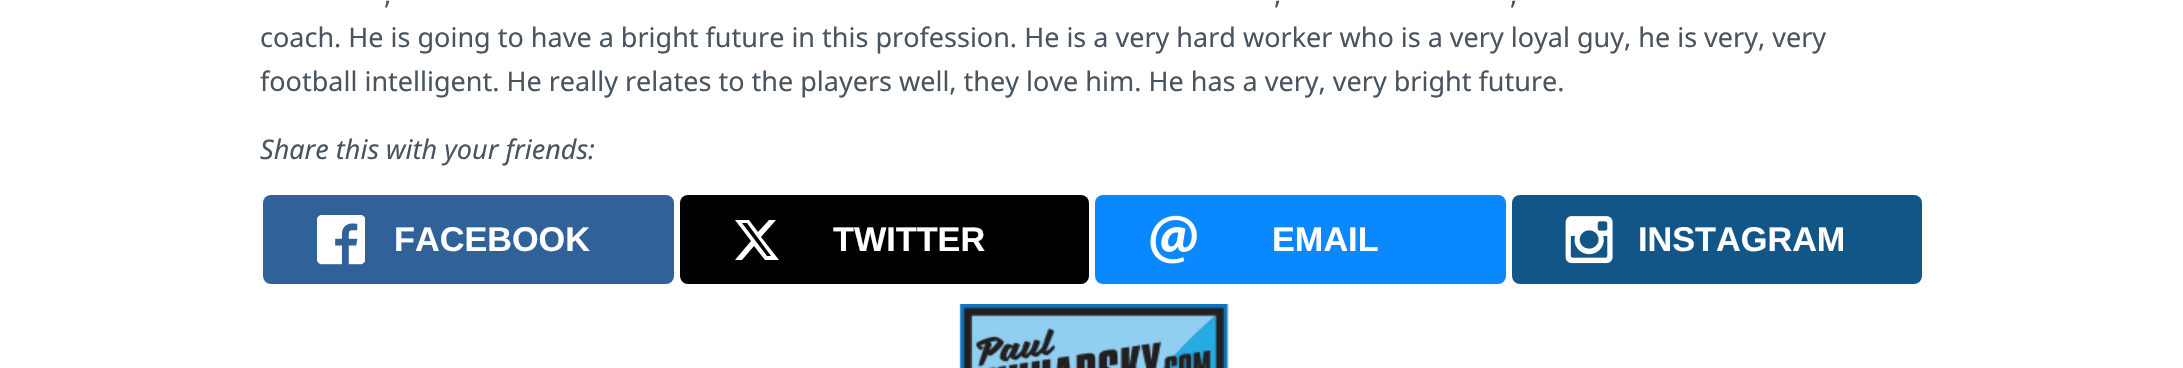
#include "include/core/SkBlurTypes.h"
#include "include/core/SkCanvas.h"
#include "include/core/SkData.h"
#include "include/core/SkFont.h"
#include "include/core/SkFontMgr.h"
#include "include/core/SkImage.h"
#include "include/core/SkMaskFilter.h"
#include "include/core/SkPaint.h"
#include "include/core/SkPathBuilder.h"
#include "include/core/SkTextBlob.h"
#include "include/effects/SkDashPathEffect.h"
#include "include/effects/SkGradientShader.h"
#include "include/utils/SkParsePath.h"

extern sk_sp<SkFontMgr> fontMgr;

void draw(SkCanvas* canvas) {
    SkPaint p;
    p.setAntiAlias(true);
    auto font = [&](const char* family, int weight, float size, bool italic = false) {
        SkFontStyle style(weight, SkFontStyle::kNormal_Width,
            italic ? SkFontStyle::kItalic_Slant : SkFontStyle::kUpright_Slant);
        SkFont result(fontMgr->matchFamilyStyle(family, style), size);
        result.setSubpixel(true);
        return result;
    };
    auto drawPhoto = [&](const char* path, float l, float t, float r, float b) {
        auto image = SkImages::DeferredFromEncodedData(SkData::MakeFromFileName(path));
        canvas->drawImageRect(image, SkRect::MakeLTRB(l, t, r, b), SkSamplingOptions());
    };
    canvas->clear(0xFFFFFFFF);
    auto font1 = font("Noto Sans", 400, 27);
    p.setColor(0xFF4A545E);
    {
        const struct { const char* s; float x, y; } items[] = {
            {",", 384, 4},
            {",", 1274, 4},
            {",", 1510, 4},
            {"coach. He is going to have a bright future in this profession. He is a very hard worker who is a very loyal guy, he is very, very", 260, 47},
            {"football intelligent. He really relates to the players well, they love him. He has a very, very bright future.", 260, 91},
        };
        for (auto [s, x, y] : items) {
            canvas->drawString(s, x, y, font1, p);
        }
    }
    auto font2 = font("Noto Sans", 400, 27, true);
    canvas->drawString("Share this with your friends:", 260, 159, font2, p);
    p.setColor(0xFF306199);
    canvas->drawRoundRect(SkRect::MakeLTRB(263, 195, 674, 284), 8, 8, p);
    drawPhoto("media/1.png", 317, 215, 365, 265);
    auto font3 = font("Liberation Sans", 700, 34.25f);
    p.setColor(0xFFFFFFFF);
    canvas->drawString("FACEBOOK", 394, 251, font3, p);
    p.setColor(0xFF000000);
    canvas->drawRoundRect(SkRect::MakeLTRB(680, 195, 1089, 284), 8, 8, p);
    p.setColor(0xFFFFFFFF);
    canvas->drawPath(SkPathBuilder().moveTo(769, 220).lineTo(776, 220).lineTo(761, 237).lineTo(779, 260).lineTo(765, 260).lineTo(754, 246).lineTo(742, 260).lineTo(735, 260).lineTo(751, 241).lineTo(735, 220).lineTo(749, 220).lineTo(758, 232).close().moveTo(767, 256).lineTo(771, 256).lineTo(747, 223).lineTo(742, 223).close().detach(), p);
    canvas->drawString("TWITTER", 833, 251, font3, p);
    p.setColor(0xFF0A88FF);
    canvas->drawRoundRect(SkRect::MakeLTRB(1095, 195, 1506, 284), 8, 8, p);
    drawPhoto("media/2.png", 1150, 215, 1197, 264);
    p.setColor(0xFFFFFFFF);
    canvas->drawString("EMAIL", 1272, 251, font3, p);
    p.setColor(0xFF125688);
    canvas->drawRoundRect(SkRect::MakeLTRB(1512, 195, 1922, 284), 8, 8, p);
    drawPhoto("media/3.png", 1565, 216, 1613, 264);
    p.setColor(0xFFFFFFFF);
    canvas->drawString("INSTAGRAM", 1638, 251, font3, p);
    drawPhoto("media/4.png", 959, 304, 1229, 368);
}
